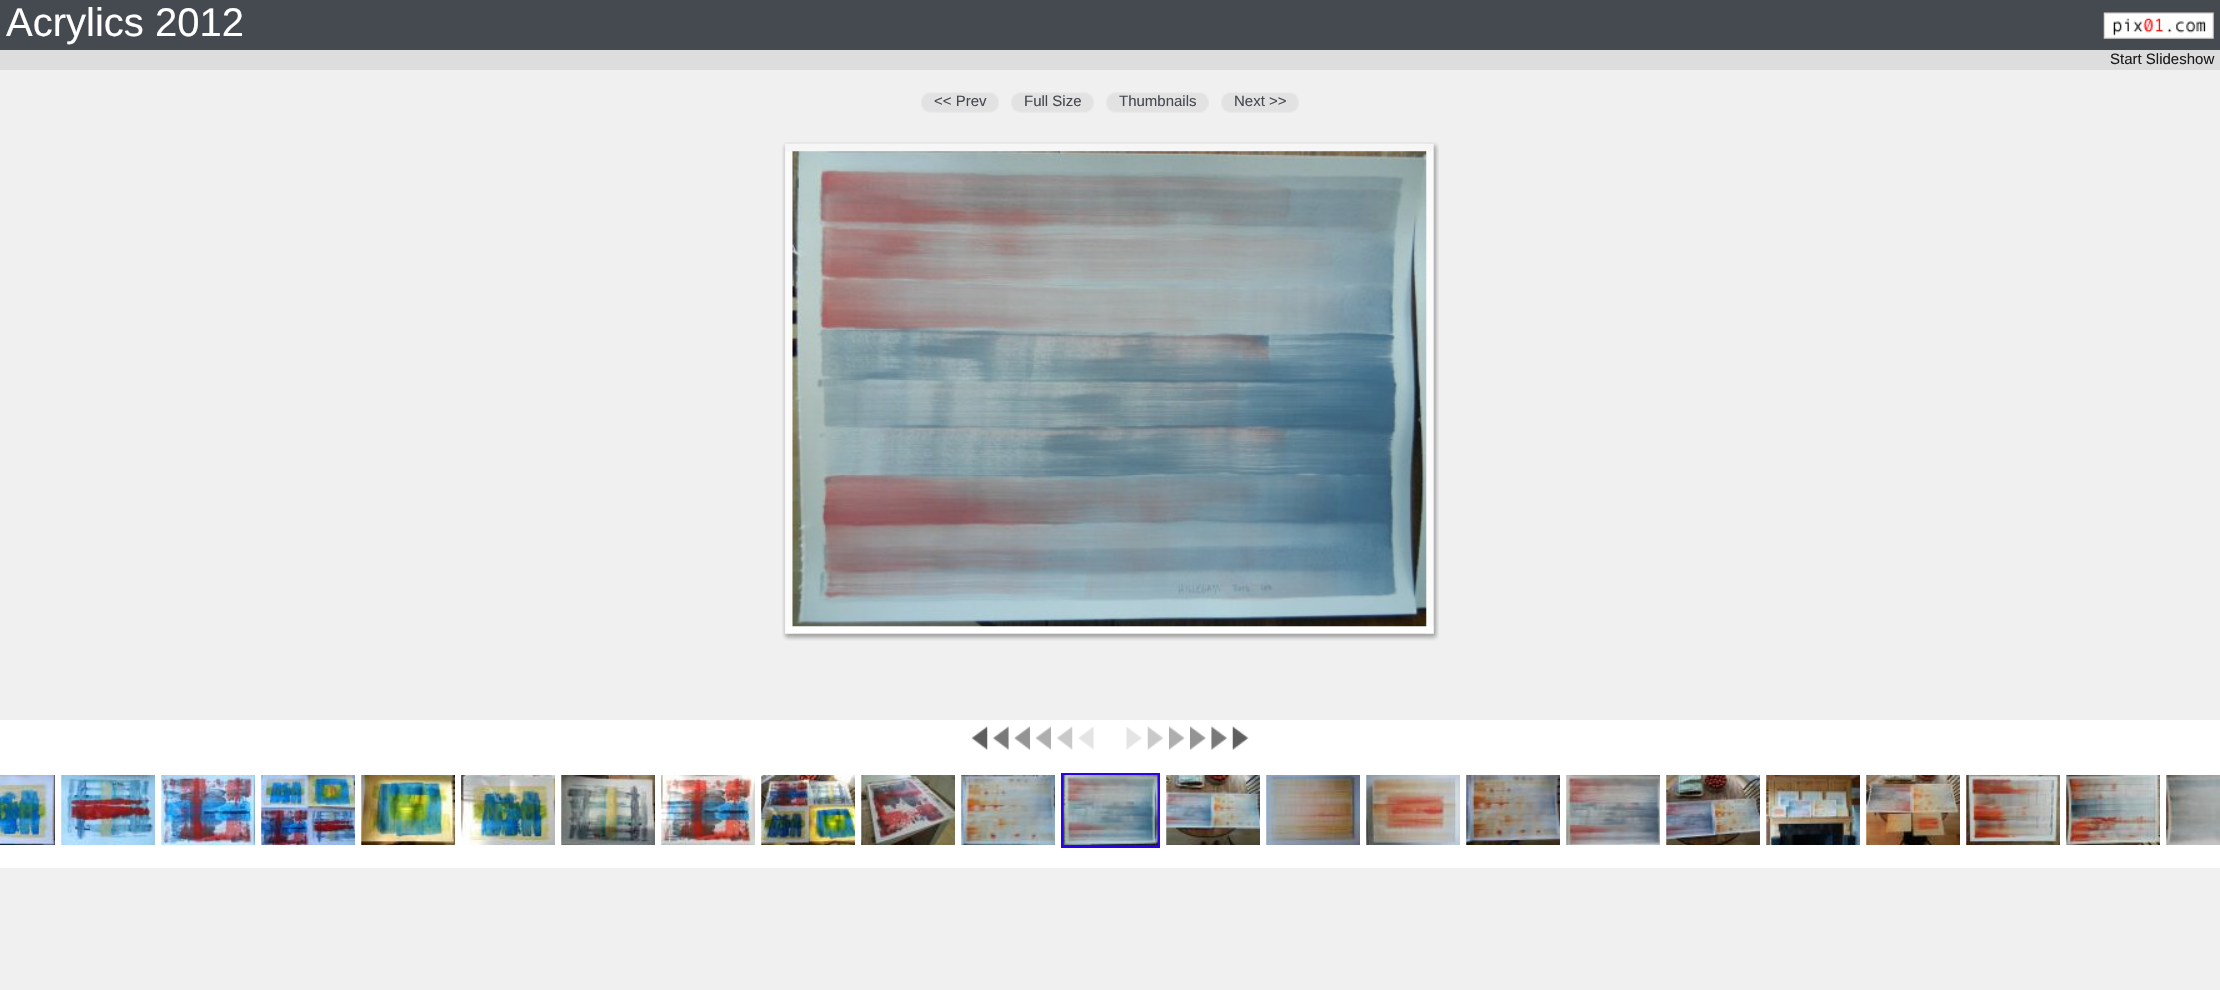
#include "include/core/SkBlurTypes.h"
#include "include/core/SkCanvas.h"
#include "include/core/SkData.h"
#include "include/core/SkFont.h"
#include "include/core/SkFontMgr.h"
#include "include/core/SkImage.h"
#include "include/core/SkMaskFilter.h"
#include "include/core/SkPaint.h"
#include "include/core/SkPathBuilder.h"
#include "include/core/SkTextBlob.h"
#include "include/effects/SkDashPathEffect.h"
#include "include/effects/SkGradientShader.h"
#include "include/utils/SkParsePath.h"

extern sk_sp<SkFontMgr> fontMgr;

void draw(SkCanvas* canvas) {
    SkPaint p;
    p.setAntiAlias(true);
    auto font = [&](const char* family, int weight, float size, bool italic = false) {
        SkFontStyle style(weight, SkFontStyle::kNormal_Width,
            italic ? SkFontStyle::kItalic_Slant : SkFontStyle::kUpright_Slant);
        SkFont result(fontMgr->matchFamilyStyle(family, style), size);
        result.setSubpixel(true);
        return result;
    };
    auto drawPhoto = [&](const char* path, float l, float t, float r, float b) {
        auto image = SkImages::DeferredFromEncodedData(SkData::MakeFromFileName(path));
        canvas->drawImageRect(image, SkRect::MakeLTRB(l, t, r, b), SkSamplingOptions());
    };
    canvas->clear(0xFFF0F0F0);
    p.setColor(0xFF454950);
    canvas->drawRect(SkRect::MakeLTRB(0, 0, 2220, 50), p);
    auto font1 = font("Liberation Sans", 400, 40);
    p.setColor(0xFFFFFFFF);
    canvas->drawString("Acrylics 2012", 6, 36, font1, p);
    drawPhoto("media/1.png", 2103, 12, 2214, 39);
    p.setColor(0xFFDDDDDD);
    canvas->drawRect(SkRect::MakeLTRB(0, 50, 2220, 70), p);
    auto font2 = font("Liberation Sans", 400, 15);
    p.setColor(0xFF1C1C1C);
    canvas->drawString("Start Slideshow", 2110, 64, font2, p);
    drawPhoto("media/2.png", 921, 92, 930, 113);
    drawPhoto("media/3.png", 930, 92, 990, 113);
    p.setColor(0xFF454950);
    canvas->drawString("<< Prev", 934, 106, font2, p);
    drawPhoto("media/4.png", 990, 92, 999, 113);
    drawPhoto("media/5.png", 1011, 92, 1020, 113);
    drawPhoto("media/6.png", 1020, 92, 1085, 113);
    canvas->drawString("Full Size", 1024, 106, font2, p);
    drawPhoto("media/7.png", 1085, 92, 1094, 113);
    drawPhoto("media/2.png", 1106, 92, 1115, 113);
    drawPhoto("media/8.png", 1115, 92, 1200, 113);
    canvas->drawString("Thumbnails", 1119, 106, font2, p);
    drawPhoto("media/7.png", 1200, 92, 1209, 113);
    drawPhoto("media/2.png", 1221, 92, 1230, 113);
    drawPhoto("media/3.png", 1230, 92, 1290, 113);
    canvas->drawString("Next >>", 1234, 106, font2, p);
    drawPhoto("media/4.png", 1290, 92, 1299, 113);
    drawPhoto("media/9.png", 782, 142, 793, 152);
    drawPhoto("media/10.png", 792, 142, 1426, 151);
    drawPhoto("media/11.png", 1426, 142, 1439, 152);
    drawPhoto("media/12.png", 782, 151, 793, 627);
    drawPhoto("media/14.png", 1426, 151, 1439, 627);
    drawPhoto("media/15.png", 782, 626, 793, 641);
    drawPhoto("media/16.png", 792, 626, 1427, 641);
    drawPhoto("media/17.png", 1426, 626, 1439, 641);
    drawPhoto("media/13.png", 792, 151, 1427, 627);
    p.setColor(0xFFFFFFFF);
    canvas->drawRect(SkRect::MakeLTRB(0, 720, 2220, 868), p);
    drawPhoto("media/18.png", 971, 726, 988, 750);
    drawPhoto("media/19.png", 992, 726, 1009, 750);
    drawPhoto("media/20.png", 1014, 726, 1030, 750);
    drawPhoto("media/21.png", 1035, 726, 1051, 750);
    drawPhoto("media/22.png", 1057, 726, 1073, 750);
    drawPhoto("media/23.png", 1078, 727, 1094, 750);
    drawPhoto("media/24.png", 1126, 727, 1142, 750);
    drawPhoto("media/25.png", 1147, 726, 1163, 750);
    drawPhoto("media/26.png", 1169, 726, 1185, 750);
    drawPhoto("media/27.png", 1190, 726, 1206, 750);
    drawPhoto("media/28.png", 1211, 726, 1228, 750);
    drawPhoto("media/29.png", 1232, 726, 1249, 750);
    drawPhoto("media/30.png", 0, 775, 55, 845);
    drawPhoto("media/31.png", 61, 775, 155, 845);
    drawPhoto("media/32.png", 161, 775, 255, 845);
    drawPhoto("media/33.png", 261, 775, 355, 845);
    drawPhoto("media/34.png", 361, 775, 455, 845);
    drawPhoto("media/35.png", 461, 775, 555, 845);
    drawPhoto("media/36.png", 561, 775, 655, 845);
    drawPhoto("media/37.png", 661, 775, 755, 845);
    drawPhoto("media/38.png", 761, 775, 855, 845);
    drawPhoto("media/39.png", 861, 775, 955, 845);
    drawPhoto("media/40.png", 961, 775, 1055, 845);
    p.setStyle(SkPaint::kStroke_Style);
    p.setStrokeWidth(3);
    p.setColor(0xFF2C03E9);
    canvas->drawRect(SkRect::MakeLTRB(1062.5f, 774.5f, 1158.5f, 846.5f), p);
    drawPhoto("media/41.png", 1063, 775, 1158, 845);
    drawPhoto("media/42.png", 1166, 775, 1260, 845);
    drawPhoto("media/43.png", 1266, 775, 1360, 845);
    drawPhoto("media/44.png", 1366, 775, 1460, 845);
    drawPhoto("media/45.png", 1466, 775, 1560, 845);
    drawPhoto("media/46.png", 1566, 775, 1660, 845);
    drawPhoto("media/47.png", 1666, 775, 1760, 845);
    drawPhoto("media/48.png", 1766, 775, 1860, 845);
    drawPhoto("media/49.png", 1866, 775, 1960, 845);
    drawPhoto("media/50.png", 1966, 775, 2060, 845);
    drawPhoto("media/51.png", 2066, 775, 2160, 845);
    drawPhoto("media/52.png", 2166, 775, 2220, 845);
}
